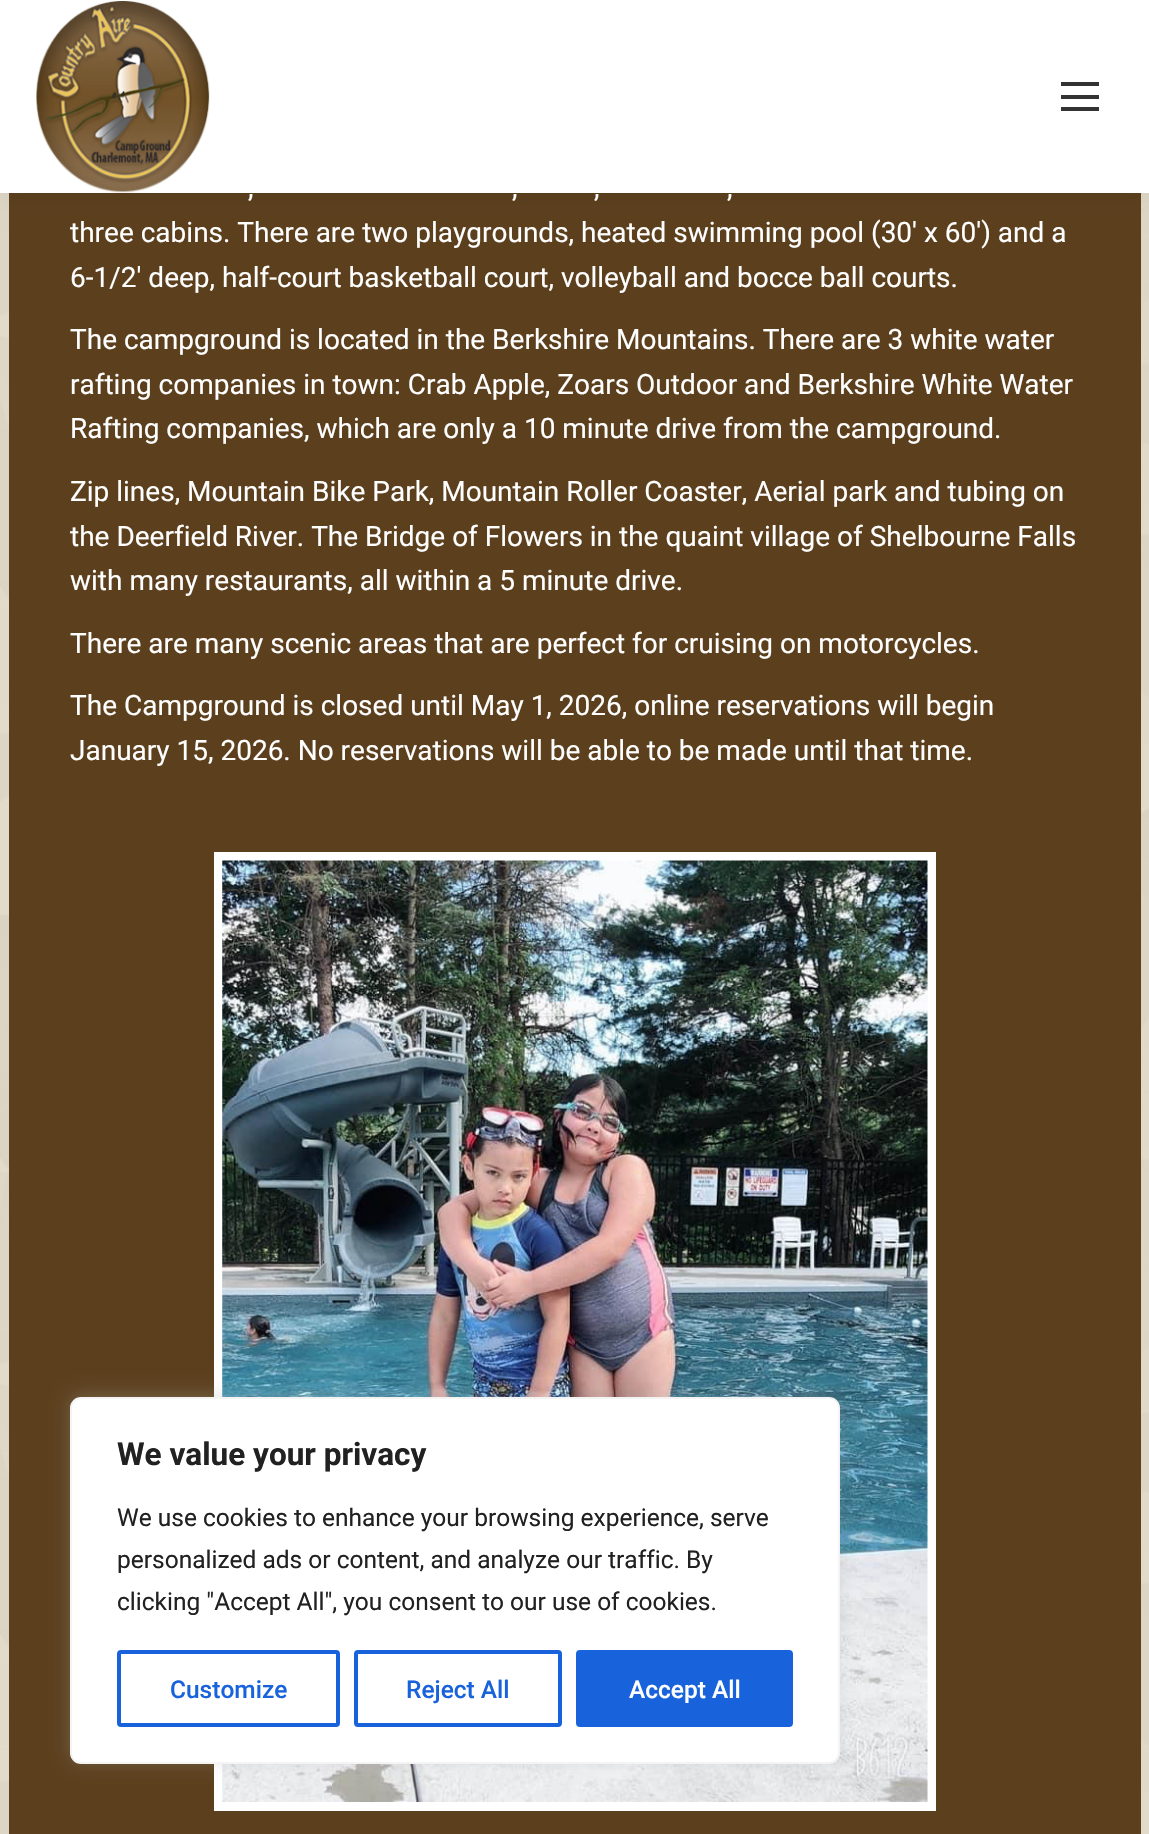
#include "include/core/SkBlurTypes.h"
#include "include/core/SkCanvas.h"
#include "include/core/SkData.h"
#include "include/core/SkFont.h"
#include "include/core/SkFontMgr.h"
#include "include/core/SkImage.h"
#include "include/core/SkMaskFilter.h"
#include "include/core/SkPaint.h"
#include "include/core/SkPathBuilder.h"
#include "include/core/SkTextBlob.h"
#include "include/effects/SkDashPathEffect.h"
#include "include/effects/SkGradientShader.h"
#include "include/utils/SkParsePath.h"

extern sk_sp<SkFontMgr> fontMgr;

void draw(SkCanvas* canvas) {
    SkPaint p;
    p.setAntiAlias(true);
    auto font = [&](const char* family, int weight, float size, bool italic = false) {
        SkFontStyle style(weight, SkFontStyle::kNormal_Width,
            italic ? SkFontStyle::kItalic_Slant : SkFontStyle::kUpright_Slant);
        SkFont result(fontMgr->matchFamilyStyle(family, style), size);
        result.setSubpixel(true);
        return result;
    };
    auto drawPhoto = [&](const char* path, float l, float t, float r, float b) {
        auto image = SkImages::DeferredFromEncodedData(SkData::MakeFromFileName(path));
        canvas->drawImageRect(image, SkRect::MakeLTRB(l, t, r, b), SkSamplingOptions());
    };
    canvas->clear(0xFFDFD6C3);
    drawPhoto("media/1.png", 0, 193, 1149, 1834);
    p.setColor(0xFF5C401E);
    canvas->drawRect(SkRect::MakeLTRB(9, 193, 1141, 1834), p);
    p.setColor(0x12000000);
    p.setMaskFilter(SkMaskFilter::MakeBlur(kNormal_SkBlurStyle, 13));
    canvas->drawRect(SkRect::MakeLTRB(-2, -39, 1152, 194), p);
    p.setMaskFilter(nullptr);
    p.setColor(0xFFFFFFFF);
    canvas->drawRect(SkRect::MakeLTRB(0, 0, 1149, 193), p);
    drawPhoto("media/2.png", 36, 1, 210, 193);
    {
        const struct { float l, t, r, b; SkColor color; } items[] = {
            {1061, 82, 1099, 86, 0xFF333333},
            {1061, 95, 1099, 99, 0xFF333333},
            {1061, 107, 1099, 111, 0xFF333333},
        };
        for (auto [l, t, r, b, color] : items) {
            p.setColor(color);
            canvas->drawRect(SkRect::MakeLTRB(l, t, r, b), p);
        }
    }
    auto font1 = font("Roboto", 400, 28);
    p.setColor(0xFFFFFFFF);
    {
        const struct { const char* s; float x, y; } items[] = {
            {",", 248, 197},
            {",", 512, 197},
            {",", 594, 197},
            {",", 727, 197},
            {"three cabins. There are two playgrounds, heated swimming pool (30′ x 60′) and a", 70, 242},
            {"6-1/2′ deep, half-court basketball court, volleyball and bocce ball courts.", 70, 287},
            {"The campground is located in the Berkshire Mountains. There are 3 white water", 70, 349},
            {"rafting companies in town: Crab Apple, Zoars Outdoor and Berkshire White Water", 70, 394},
            {"Rafting companies, which are only a 10 minute drive from the campground.", 70, 438},
            {"Zip lines, Mountain Bike Park, Mountain Roller Coaster, Aerial park and tubing on", 70, 501},
            {"the Deerfield River. The Bridge of Flowers in the quaint village of Shelbourne Falls", 70, 546},
            {"with many restaurants, all within a 5 minute drive.", 70, 590},
            {"There are many scenic areas that are perfect for cruising on motorcycles.", 70, 653},
            {"The Campground is closed until May 1, 2026, online reservations will begin", 70, 715},
            {"January 15, 2026. No reservations will be able to be made until that time.", 70, 760},
        };
        for (auto [s, x, y] : items) {
            canvas->drawString(s, x, y, font1, p);
        }
    }
    p.setStyle(SkPaint::kStroke_Style);
    p.setStrokeWidth(9);
    canvas->drawRect(SkRect::MakeLTRB(218.5f, 856.5f, 931.5f, 1806.5f), p);
    drawPhoto("media/3.png", 222, 860, 928, 1802);
    p.setStyle(SkPaint::kFill_Style);
    p.setColor(0x4DACABAB);
    p.setMaskFilter(SkMaskFilter::MakeBlur(kNormal_SkBlurStyle, 9));
    canvas->drawRoundRect(SkRect::MakeLTRB(70, 1395, 840, 1762), 11, 11, p);
    p.setMaskFilter(nullptr);
    p.setColor(0xFFFFFFFF);
    canvas->drawRoundRect(SkRect::MakeLTRB(71, 1398, 839, 1763), 10, 10, p);
    p.setStyle(SkPaint::kStroke_Style);
    p.setStrokeWidth(2);
    p.setColor(0xFFF4F4F4);
    canvas->drawRoundRect(SkRect::MakeLTRB(71, 1398, 839, 1763), 10, 10, p);
    auto font2 = font("Roboto", 700, 31.5f);
    p.setStyle(SkPaint::kFill_Style);
    p.setColor(0xFF212121);
    canvas->drawString("We value your privacy", 117, 1465, font2, p);
    auto font3 = font("Roboto", 400, 24.5f);
    {
        const struct { const char* s; float x, y; } items[] = {
            {"We use cookies to enhance your browsing experience, serve", 117, 1526},
            {"personalized ads or content, and analyze our traffic. By", 117, 1568},
            {"clicking \"Accept All\", you consent to our use of cookies.", 117, 1610},
        };
        for (auto [s, x, y] : items) {
            canvas->drawString(s, x, y, font3, p);
        }
    }
    p.setStyle(SkPaint::kStroke_Style);
    p.setStrokeWidth(4);
    p.setColor(0xFF1863DC);
    canvas->drawRoundRect(SkRect::MakeLTRB(119, 1652, 338, 1725), 2, 2, p);
    auto font4 = font("Roboto", 500, 24.5f);
    p.setStyle(SkPaint::kFill_Style);
    canvas->drawString("Customize", 170, 1698, font4, p);
    p.setStyle(SkPaint::kStroke_Style);
    canvas->drawRoundRect(SkRect::MakeLTRB(356, 1652, 560, 1725), 2, 2, p);
    p.setStyle(SkPaint::kFill_Style);
    canvas->drawString("Reject All", 406, 1698, font4, p);
    canvas->drawRoundRect(SkRect::MakeLTRB(578, 1652, 791, 1725), 2, 2, p);
    p.setStyle(SkPaint::kStroke_Style);
    canvas->drawRoundRect(SkRect::MakeLTRB(578, 1652, 791, 1725), 2, 2, p);
    p.setStyle(SkPaint::kFill_Style);
    p.setColor(0xFFFFFFFF);
    canvas->drawString("Accept All", 629, 1698, font4, p);
}
